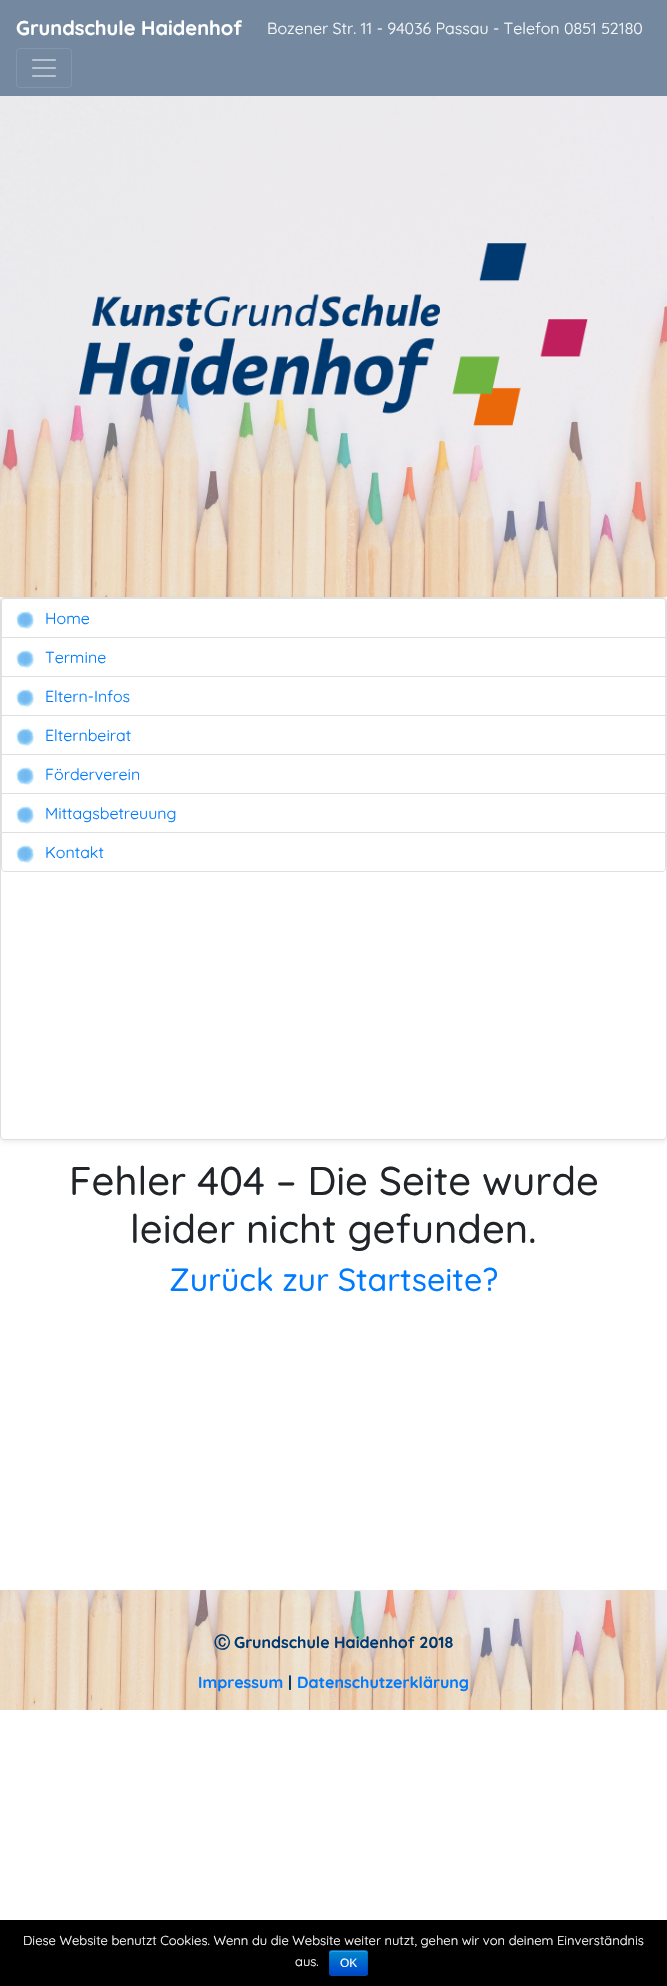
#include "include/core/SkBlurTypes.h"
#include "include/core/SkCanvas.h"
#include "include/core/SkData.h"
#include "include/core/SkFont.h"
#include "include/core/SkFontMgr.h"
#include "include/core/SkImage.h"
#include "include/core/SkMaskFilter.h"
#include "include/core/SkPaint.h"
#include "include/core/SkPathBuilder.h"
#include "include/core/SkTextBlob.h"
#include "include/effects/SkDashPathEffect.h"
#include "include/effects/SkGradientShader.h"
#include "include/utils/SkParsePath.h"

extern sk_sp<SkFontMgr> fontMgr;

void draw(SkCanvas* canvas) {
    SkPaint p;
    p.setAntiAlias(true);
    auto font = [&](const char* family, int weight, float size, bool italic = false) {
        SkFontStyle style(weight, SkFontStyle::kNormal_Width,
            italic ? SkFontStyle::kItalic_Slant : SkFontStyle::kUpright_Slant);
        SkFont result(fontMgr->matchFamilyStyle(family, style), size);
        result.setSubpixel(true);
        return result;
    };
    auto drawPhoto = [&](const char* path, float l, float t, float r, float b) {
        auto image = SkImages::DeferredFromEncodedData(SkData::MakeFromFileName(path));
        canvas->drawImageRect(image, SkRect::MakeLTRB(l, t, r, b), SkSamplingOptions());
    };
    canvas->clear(0xFFFFFFFF);
    p.setColor(0xFF7489A0);
    canvas->drawRect(SkRect::MakeLTRB(0, 0, 667, 96), p);
    auto font1 = font("Quicksand", 700, 20);
    p.setColor(0xFFFFFFFF);
    canvas->drawString("Grundschule Haidenhof", 16, 35, font1, p);
    auto font2 = font("Quicksand", 400, 16);
    p.setColor(0xFFF8F9FA);
    canvas->drawString("Bozener Str. 11 - 94036 Passau - Telefon 0851 52180", 267, 34, font2, p);
    p.setStyle(SkPaint::kStroke_Style);
    p.setStrokeWidth(1);
    p.setColor(0xFF8295AA);
    canvas->drawRoundRect(SkRect::MakeLTRB(16.5f, 48.5f, 71.5f, 87.5f), 3.5f, 3.5f, p);
    drawPhoto("media/1.png", 32, 59, 56, 77);
    drawPhoto("media/2.png", 0, 96, 667, 597);
    drawPhoto("media/3.png", 79, 243, 588, 426);
    p.setStyle(SkPaint::kFill_Style);
    p.setColor(0x12000000);
    p.setMaskFilter(SkMaskFilter::MakeBlur(kNormal_SkBlurStyle, 2));
    canvas->drawRoundRect(SkRect::MakeLTRB(0, 599, 667, 1142), 4, 4, p);
    p.setMaskFilter(nullptr);
    p.setColor(0xFFFFFFFF);
    canvas->drawRoundRect(SkRect::MakeLTRB(0.5f, 597.5f, 666.5f, 1139.5f), 3.5f, 3.5f, p);
    p.setStyle(SkPaint::kStroke_Style);
    p.setColor(0xFFDFDFDF);
    canvas->drawRoundRect(SkRect::MakeLTRB(0.5f, 597.5f, 666.5f, 1139.5f), 3.5f, 3.5f, p);
    p.setStyle(SkPaint::kFill_Style);
    canvas->drawPath(SkPathBuilder(SkPathFillType::kEvenOdd).moveTo(5, 598).lineTo(662, 598).cubicTo(664, 598, 666, 600, 666, 602).lineTo(666, 637).lineTo(1, 637).lineTo(1, 602).cubicTo(1, 600, 3, 598, 5, 598).close().moveTo(5, 599).lineTo(662, 599).cubicTo(664, 599, 665, 600, 665, 602).lineTo(665, 637).lineTo(2, 637).lineTo(2, 602).cubicTo(2, 600, 3, 599, 5, 599).close().detach(), p);
    drawPhoto("media/4.png", 16, 611, 35, 629);
    p.setColor(0xFF007BFF);
    canvas->drawString("Home", 45, 624, font2, p);
    p.setColor(0xFFDFDFDF);
    canvas->drawPath(SkPathBuilder().moveTo(1, 637).lineTo(666, 637).lineTo(665, 638).lineTo(2, 638).close().detach(), p);
    p.setColor(0x1F000000);
    canvas->drawPath(SkPathBuilder().moveTo(666, 637).lineTo(666, 676).lineTo(665, 676).lineTo(665, 638).close().detach(), p);
    canvas->drawPath(SkPathBuilder().moveTo(1, 676).lineTo(1, 637).lineTo(2, 638).lineTo(2, 676).close().detach(), p);
    drawPhoto("media/4.png", 16, 650, 35, 668);
    p.setColor(0xFF007BFF);
    canvas->drawString("Termine", 45, 663, font2, p);
    p.setColor(0xFFDFDFDF);
    canvas->drawPath(SkPathBuilder().moveTo(1, 676).lineTo(666, 676).lineTo(665, 677).lineTo(2, 677).close().detach(), p);
    p.setColor(0x1F000000);
    canvas->drawPath(SkPathBuilder().moveTo(666, 676).lineTo(666, 715).lineTo(665, 715).lineTo(665, 677).close().detach(), p);
    canvas->drawPath(SkPathBuilder().moveTo(1, 715).lineTo(1, 676).lineTo(2, 677).lineTo(2, 715).close().detach(), p);
    drawPhoto("media/4.png", 16, 689, 35, 707);
    p.setColor(0xFF007BFF);
    canvas->drawString("Eltern-Infos", 45, 702, font2, p);
    p.setColor(0xFFDFDFDF);
    canvas->drawPath(SkPathBuilder().moveTo(1, 715).lineTo(666, 715).lineTo(665, 716).lineTo(2, 716).close().detach(), p);
    p.setColor(0x1F000000);
    canvas->drawPath(SkPathBuilder().moveTo(666, 715).lineTo(666, 754).lineTo(665, 754).lineTo(665, 716).close().detach(), p);
    canvas->drawPath(SkPathBuilder().moveTo(1, 754).lineTo(1, 715).lineTo(2, 716).lineTo(2, 754).close().detach(), p);
    drawPhoto("media/4.png", 16, 728, 35, 746);
    p.setColor(0xFF007BFF);
    canvas->drawString("Elternbeirat", 45, 741, font2, p);
    p.setColor(0xFFDFDFDF);
    canvas->drawPath(SkPathBuilder().moveTo(1, 754).lineTo(666, 754).lineTo(665, 755).lineTo(2, 755).close().detach(), p);
    p.setColor(0x1F000000);
    canvas->drawPath(SkPathBuilder().moveTo(666, 754).lineTo(666, 793).lineTo(665, 793).lineTo(665, 755).close().detach(), p);
    canvas->drawPath(SkPathBuilder().moveTo(1, 793).lineTo(1, 754).lineTo(2, 755).lineTo(2, 793).close().detach(), p);
    drawPhoto("media/4.png", 16, 767, 35, 785);
    p.setColor(0xFF007BFF);
    canvas->drawString("Förderverein", 45, 780, font2, p);
    p.setColor(0xFFDFDFDF);
    canvas->drawPath(SkPathBuilder().moveTo(1, 793).lineTo(666, 793).lineTo(665, 794).lineTo(2, 794).close().detach(), p);
    p.setColor(0x1F000000);
    canvas->drawPath(SkPathBuilder().moveTo(666, 793).lineTo(666, 832).lineTo(665, 832).lineTo(665, 794).close().detach(), p);
    canvas->drawPath(SkPathBuilder().moveTo(1, 832).lineTo(1, 793).lineTo(2, 794).lineTo(2, 832).close().detach(), p);
    drawPhoto("media/4.png", 16, 806, 35, 824);
    p.setColor(0xFF007BFF);
    canvas->drawString("Mittagsbetreuung", 45, 819, font2, p);
    p.setStyle(SkPaint::kStroke_Style);
    p.setColor(0xFFDFDFDF);
    canvas->drawPath(SkPathBuilder().moveTo(1.5f, 832.5f).lineTo(665.5f, 832.5f).lineTo(665.5f, 868).cubicTo(665.5f, 870, 664, 871.5f, 662, 871.5f).lineTo(5, 871.5f).cubicTo(3, 871.5f, 1.5f, 870, 1.5f, 868).close().detach(), p);
    drawPhoto("media/4.png", 16, 845, 35, 863);
    p.setStyle(SkPaint::kFill_Style);
    p.setColor(0xFF007BFF);
    canvas->drawString("Kontakt", 45, 858, font2, p);
    auto font3 = font("Quicksand", 500, 40);
    p.setColor(0xFF212529);
    canvas->drawString("Fehler 404 – Die Seite wurde", 69, 1195, font3, p);
    canvas->drawString("leider nicht gefunden.", 130, 1243, font3, p);
    auto font4 = font("Quicksand", 500, 32);
    p.setColor(0xFF007BFF);
    canvas->drawString("Zurück zur Startseite?", 169, 1291, font4, p);
    drawPhoto("media/5.png", 0, 1590, 667, 1710);
    auto font5 = font("WenQuanYi Zen Hei", 700, 16);
    p.setColor(0xFF003970);
    canvas->drawString("Ⓒ", 214, 1648, font5, p);
    auto font6 = font("Quicksand", 700, 16);
    canvas->drawString("Grundschule Haidenhof 2018", 234, 1648, font6, p);
    p.setColor(0xFF007BFF);
    canvas->drawString("Impressum", 198, 1688, font6, p);
    p.setColor(0xFF003970);
    canvas->drawString("|", 288, 1688, font6, p);
    p.setColor(0xFF007BFF);
    canvas->drawString("Datenschutzerklärung", 297, 1688, font6, p);
    p.setColor(0xFF000000);
    canvas->drawRect(SkRect::MakeLTRB(0, 1920, 667, 1986), p);
    auto font7 = font("Quicksand", 400, 13);
    p.setColor(0xFFFFFFFF);
    canvas->drawString("Diese Website benutzt Cookies. Wenn du die Website weiter nutzt, gehen wir von deinem Einverständnis", 23, 1945, font7, p);
    canvas->drawString("aus.", 295, 1966, font7, p);
    p.setColor(0xFF006DCC);
    canvas->drawRoundRect(SkRect::MakeLTRB(329, 1950, 368, 1976), 3, 3, p);
    canvas->save();
    canvas->clipPath(SkPathBuilder().moveTo(332, 1950).lineTo(365, 1950).cubicTo(366.5f, 1950, 368, 1951.5f, 368, 1953).lineTo(368, 1973).cubicTo(368, 1974.5f, 366.5f, 1976, 365, 1976).lineTo(332, 1976).cubicTo(330.5f, 1976, 329, 1974.5f, 329, 1973).lineTo(329, 1953).cubicTo(329, 1951.5f, 330.5f, 1950, 332, 1950).close().detach(), true);
    {
        const SkColor colors[] = {0xFF0088CC, 0xFF0044CC};
        const float stops[] = {0, 1};
        const SkPoint ends[] = {{349, 1951}, {349, 1975}};
        p.setShader(SkGradientShader::MakeLinear(ends, colors, stops, 2, SkTileMode::kClamp));
        p.setAlpha(255);
    }
    canvas->drawRect(SkRect::MakeLTRB(329, 1951, 368, 1975), p);
    canvas->restore();
    p.setShader(nullptr);
    p.setColor(0x33FFFFFF);
    canvas->drawPath(SkPathBuilder().moveTo(332, 1952).lineTo(365, 1952).cubicTo(366, 1952, 367, 1953, 367, 1954).cubicTo(367, 1949.5f, 363.5f, 1951, 359.5f, 1951).lineTo(337.5f, 1951).cubicTo(333.5f, 1951, 330, 1949.5f, 330, 1954).cubicTo(330, 1953, 331, 1952, 332, 1952).close().detach(), p);
    p.setStyle(SkPaint::kStroke_Style);
    p.setColor(0x40000000);
    canvas->drawPath(SkPathBuilder().moveTo(367, 1975).cubicTo(366.5f, 1975, 365.5f, 1975.5f, 365, 1975.5f).lineTo(332, 1975.5f).cubicTo(331.5f, 1975.5f, 330.5f, 1975, 330, 1975).detach(), p);
    p.setColor(0x1A000000);
    canvas->drawPath(SkPathBuilder().moveTo(330, 1975).cubicTo(330, 1974.5f, 329.5f, 1973.5f, 329.5f, 1973).lineTo(329.5f, 1953).cubicTo(329.5f, 1952.5f, 330, 1951.5f, 330, 1951).cubicTo(330.5f, 1951, 331.5f, 1950.5f, 332, 1950.5f).lineTo(365, 1950.5f).cubicTo(365.5f, 1950.5f, 366.5f, 1951, 367, 1951).cubicTo(367, 1951.5f, 367.5f, 1952.5f, 367.5f, 1953).lineTo(367.5f, 1973).cubicTo(367.5f, 1973.5f, 367, 1974.5f, 367, 1975).detach(), p);
    auto font8 = font("Liberation Sans", 400, 12);
    p.setStyle(SkPaint::kFill_Style);
    p.setColor(0xFFFFFFFF);
    canvas->drawString("OK", 340, 1967, font8, p);
}
